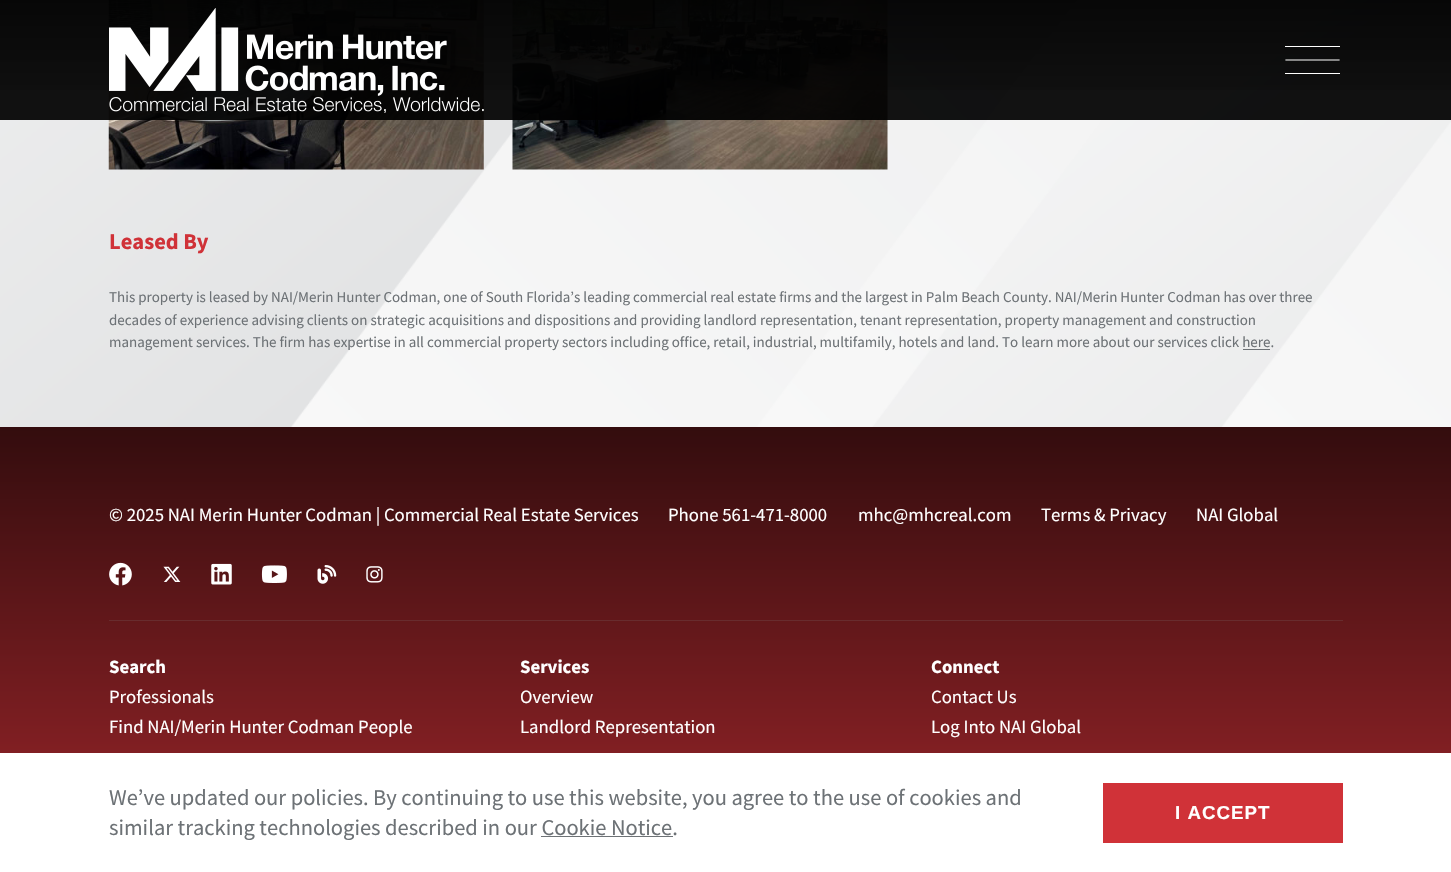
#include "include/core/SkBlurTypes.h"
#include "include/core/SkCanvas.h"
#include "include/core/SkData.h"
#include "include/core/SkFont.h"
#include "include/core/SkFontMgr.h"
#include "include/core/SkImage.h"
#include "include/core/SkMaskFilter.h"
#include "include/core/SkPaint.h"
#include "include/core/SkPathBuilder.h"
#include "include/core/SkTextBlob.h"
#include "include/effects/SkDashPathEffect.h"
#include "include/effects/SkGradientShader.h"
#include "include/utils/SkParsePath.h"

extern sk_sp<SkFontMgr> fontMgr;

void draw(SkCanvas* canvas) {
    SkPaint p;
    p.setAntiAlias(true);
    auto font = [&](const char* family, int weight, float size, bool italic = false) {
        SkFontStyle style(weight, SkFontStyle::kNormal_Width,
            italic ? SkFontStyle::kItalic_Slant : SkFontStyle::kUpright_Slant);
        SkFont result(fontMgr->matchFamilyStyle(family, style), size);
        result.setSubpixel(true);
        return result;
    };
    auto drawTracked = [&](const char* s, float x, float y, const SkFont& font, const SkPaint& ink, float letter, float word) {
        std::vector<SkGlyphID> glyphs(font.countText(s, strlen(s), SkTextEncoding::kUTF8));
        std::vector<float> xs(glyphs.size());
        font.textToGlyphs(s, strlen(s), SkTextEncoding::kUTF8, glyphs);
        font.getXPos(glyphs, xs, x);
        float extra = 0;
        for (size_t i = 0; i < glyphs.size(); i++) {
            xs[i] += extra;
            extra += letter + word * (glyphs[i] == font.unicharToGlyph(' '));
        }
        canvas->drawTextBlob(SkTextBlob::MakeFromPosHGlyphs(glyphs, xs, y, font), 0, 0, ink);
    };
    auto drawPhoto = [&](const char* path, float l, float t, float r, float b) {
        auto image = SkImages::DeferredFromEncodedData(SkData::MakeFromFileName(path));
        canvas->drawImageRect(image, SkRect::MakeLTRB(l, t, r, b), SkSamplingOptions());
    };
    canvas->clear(0xFFFFFFFF);
    {
        const SkColor colors[] = {0xFFD03238, 0xFF000000};
        const float stops[] = {0, 1};
        const SkPoint ends[] = {{726, 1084}, {726, 211}};
        p.setShader(SkGradientShader::MakeLinear(ends, colors, stops, 2, SkTileMode::kClamp));
        p.setAlpha(255);
    }
    canvas->drawRect(SkRect::MakeLTRB(0, 427, 1451, 753), p);
    drawPhoto("media/2.png", 0, 0, 1451, 427);
    drawPhoto("media/3.png", 108, 0, 484, 170);
    drawPhoto("media/4.png", 512, 0, 888, 170);
    p.setShader(nullptr);
    p.setColor(0xED000000);
    canvas->drawRect(SkRect::MakeLTRB(0, 0, 1451, 120), p);
    {
        const SkColor colors[] = {0x00000000, 0x99000000};
        const float stops[] = {0, 1};
        const SkPoint ends[] = {{726, 120}, {726, 0}};
        p.setShader(SkGradientShader::MakeLinear(ends, colors, stops, 2, SkTileMode::kClamp));
        p.setAlpha(255);
    }
    canvas->drawRect(SkRect::MakeLTRB(0, 0, 1451, 90), p);
    drawPhoto("media/1.png", 109, 8, 484, 113);
    p.setShader(nullptr);
    p.setColor(0xFFFFFFFF);
    canvas->drawRect(SkRect::MakeLTRB(1285, 46, 1340, 47), p);
    p.setStyle(SkPaint::kStroke_Style);
    p.setStrokeWidth(1.2f);
    p.setStrokeCap(SkPaint::kSquare_Cap);
    canvas->drawPath(SkPathBuilder().moveTo(1339, 60).lineTo(1286, 60).detach(), p);
    p.setStyle(SkPaint::kFill_Style);
    canvas->drawRect(SkRect::MakeLTRB(1285, 73, 1340, 74), p);
    auto font1 = font("Source Sans Pro", 700, 22.5f);
    p.setColor(0xFFD03238);
    canvas->drawString("Leased By", 109, 249, font1, p);
    auto font2 = font("Source Sans Pro", 400, 15);
    p.setColor(0xFF6D7276);
    {
        const struct { const char* s; float x, y; } items[] = {
            {"This property is leased by NAI/Merin Hunter Codman, one of South Florida’s leading commercial real estate firms and the largest in Palm Beach County. NAI/Merin Hunter Codman has over three", 109, 302},
            {"decades of experience advising clients on strategic acquisitions and dispositions and providing landlord representation, tenant representation, property management and construction", 109, 325},
            {"management services. The firm has expertise in all commercial property sectors including office, retail, industrial, multifamily, hotels and land. To learn more about our services click here.", 109, 347},
        };
        for (auto [s, x, y] : items) {
            canvas->drawString(s, x, y, font2, p);
        }
    }
    canvas->drawRect(SkRect::MakeLTRB(1243, 349, 1270, 350), p);
    auto font3 = font("Source Sans Pro", 400, 18.75f);
    p.setColor(0xFFFFFFFF);
    {
        const struct { const char* s; float x, y; } items[] = {
            {"© 2025 NAI Merin Hunter Codman | Commercial Real Estate Services", 109, 521},
            {"Phone 561-471-8000", 668, 521},
            {"mhc@mhcreal.com", 858, 521},
            {"Terms & Privacy", 1041, 521},
            {"NAI Global", 1196, 521},
        };
        for (auto [s, x, y] : items) {
            canvas->drawString(s, x, y, font3, p);
        }
    }
    drawPhoto("media/5.png", 109, 562, 132, 586);
    drawPhoto("media/6.png", 163, 566, 181, 582);
    drawPhoto("media/7.png", 211, 563, 232, 585);
    drawPhoto("media/8.png", 261, 565, 287, 583);
    drawPhoto("media/9.png", 317, 565, 337, 584);
    drawPhoto("media/10.png", 366, 566, 383, 583);
    p.setColor(0xFF682C2E);
    canvas->drawRect(SkRect::MakeLTRB(109, 620, 1343, 621), p);
    auto font4 = font("Source Sans Pro", 700, 18.75f);
    p.setColor(0xFFFFFFFF);
    canvas->drawString("Search", 109, 673, font4, p);
    canvas->drawString("Professionals", 109, 703, font3, p);
    canvas->drawString("Find NAI/Merin Hunter Codman People", 109, 733, font3, p);
    canvas->drawString("Services", 520, 673, font4, p);
    canvas->drawString("Overview", 520, 703, font3, p);
    canvas->drawString("Landlord Representation", 520, 733, font3, p);
    canvas->drawString("Connect", 931, 673, font4, p);
    canvas->drawString("Contact Us", 931, 703, font3, p);
    canvas->drawString("Log Into NAI Global", 931, 733, font3, p);
    auto font5 = font("Source Sans Pro", 400, 22.5f);
    p.setColor(0xFF6D7276);
    canvas->drawString("We’ve updated our policies. By continuing to use this website, you agree to the use of cookies and", 109, 805, font5, p);
    canvas->drawString("similar tracking technologies described in our Cookie Notice.", 109, 835, font5, p);
    canvas->drawRect(SkRect::MakeLTRB(541, 836, 673, 837), p);
    p.setColor(0xFFD03238);
    canvas->drawRect(SkRect::MakeLTRB(1103, 783, 1343, 843), p);
    auto font6 = font("Liberation Sans", 700, 18.75f);
    p.setColor(0xFFFFFFFF);
    drawTracked("I ACCEPT", 1175, 819, font6, p, 1, 0);
}
